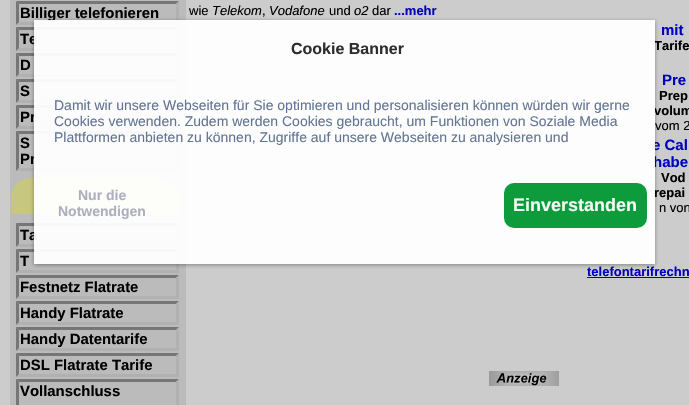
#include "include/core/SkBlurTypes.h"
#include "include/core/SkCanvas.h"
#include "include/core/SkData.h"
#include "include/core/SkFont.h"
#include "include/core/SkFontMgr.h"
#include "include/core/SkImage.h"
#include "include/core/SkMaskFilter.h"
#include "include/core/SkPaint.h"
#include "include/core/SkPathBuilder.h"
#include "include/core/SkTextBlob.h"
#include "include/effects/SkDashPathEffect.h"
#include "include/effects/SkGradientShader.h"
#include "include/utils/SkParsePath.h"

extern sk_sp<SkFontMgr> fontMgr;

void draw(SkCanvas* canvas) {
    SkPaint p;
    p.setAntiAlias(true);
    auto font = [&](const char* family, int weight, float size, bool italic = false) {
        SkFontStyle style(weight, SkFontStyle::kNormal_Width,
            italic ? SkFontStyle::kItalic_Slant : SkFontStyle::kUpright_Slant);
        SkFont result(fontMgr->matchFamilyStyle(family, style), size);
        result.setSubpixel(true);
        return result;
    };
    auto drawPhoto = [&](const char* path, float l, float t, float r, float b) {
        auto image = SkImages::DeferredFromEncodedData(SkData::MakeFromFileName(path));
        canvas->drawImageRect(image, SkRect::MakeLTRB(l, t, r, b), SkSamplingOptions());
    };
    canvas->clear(0xFFCCCCCC);
    p.setColor(0xFFBBBBBB);
    canvas->drawRect(SkRect::MakeLTRB(10, 0, 186, 405), p);
    p.setColor(0xFF767676);
    canvas->drawPath(SkPathBuilder().moveTo(16, 1).lineTo(179, 1).lineTo(176, 4).lineTo(19, 4).close().detach(), p);
    p.setColor(0xFFB1B1B1);
    canvas->drawPath(SkPathBuilder().moveTo(179, 1).lineTo(179, 25).lineTo(176, 22).lineTo(176, 4).close().detach(), p);
    canvas->drawPath(SkPathBuilder().moveTo(179, 25).lineTo(16, 25).lineTo(19, 22).lineTo(176, 22).close().detach(), p);
    p.setColor(0xFF767676);
    canvas->drawPath(SkPathBuilder().moveTo(16, 25).lineTo(16, 1).lineTo(19, 4).lineTo(19, 22).close().detach(), p);
    auto font1 = font("Liberation Sans", 700, 14.9f);
    p.setColor(0xFF000000);
    canvas->drawString("Billiger telefonieren", 20, 18, font1, p);
    p.setColor(0xFF767676);
    canvas->drawPath(SkPathBuilder().moveTo(16, 27).lineTo(179, 27).lineTo(176, 30).lineTo(19, 30).close().detach(), p);
    p.setColor(0xFFB1B1B1);
    canvas->drawPath(SkPathBuilder().moveTo(179, 27).lineTo(179, 51).lineTo(176, 48).lineTo(176, 30).close().detach(), p);
    canvas->drawPath(SkPathBuilder().moveTo(179, 51).lineTo(16, 51).lineTo(19, 48).lineTo(176, 48).close().detach(), p);
    p.setColor(0xFF767676);
    canvas->drawPath(SkPathBuilder().moveTo(16, 51).lineTo(16, 27).lineTo(19, 30).lineTo(19, 48).close().detach(), p);
    p.setColor(0xFF000000);
    canvas->drawString("Te", 20, 44, font1, p);
    p.setColor(0xFF767676);
    canvas->drawPath(SkPathBuilder().moveTo(16, 53).lineTo(179, 53).lineTo(176, 56).lineTo(19, 56).close().detach(), p);
    p.setColor(0xFFB1B1B1);
    canvas->drawPath(SkPathBuilder().moveTo(179, 53).lineTo(179, 77).lineTo(176, 74).lineTo(176, 56).close().detach(), p);
    canvas->drawPath(SkPathBuilder().moveTo(179, 77).lineTo(16, 77).lineTo(19, 74).lineTo(176, 74).close().detach(), p);
    p.setColor(0xFF767676);
    canvas->drawPath(SkPathBuilder().moveTo(16, 77).lineTo(16, 53).lineTo(19, 56).lineTo(19, 74).close().detach(), p);
    p.setColor(0xFF000000);
    canvas->drawString("D", 20, 70, font1, p);
    p.setColor(0xFF767676);
    canvas->drawPath(SkPathBuilder().moveTo(16, 79).lineTo(179, 79).lineTo(176, 82).lineTo(19, 82).close().detach(), p);
    p.setColor(0xFFB1B1B1);
    canvas->drawPath(SkPathBuilder().moveTo(179, 79).lineTo(179, 103).lineTo(176, 100).lineTo(176, 82).close().detach(), p);
    canvas->drawPath(SkPathBuilder().moveTo(179, 103).lineTo(16, 103).lineTo(19, 100).lineTo(176, 100).close().detach(), p);
    p.setColor(0xFF767676);
    canvas->drawPath(SkPathBuilder().moveTo(16, 103).lineTo(16, 79).lineTo(19, 82).lineTo(19, 100).close().detach(), p);
    p.setColor(0xFF000000);
    canvas->drawString("S", 20, 96, font1, p);
    p.setColor(0xFF767676);
    canvas->drawPath(SkPathBuilder().moveTo(16, 105).lineTo(179, 105).lineTo(176, 108).lineTo(19, 108).close().detach(), p);
    p.setColor(0xFFB1B1B1);
    canvas->drawPath(SkPathBuilder().moveTo(179, 105).lineTo(179, 129).lineTo(176, 126).lineTo(176, 108).close().detach(), p);
    canvas->drawPath(SkPathBuilder().moveTo(179, 129).lineTo(16, 129).lineTo(19, 126).lineTo(176, 126).close().detach(), p);
    p.setColor(0xFF767676);
    canvas->drawPath(SkPathBuilder().moveTo(16, 129).lineTo(16, 105).lineTo(19, 108).lineTo(19, 126).close().detach(), p);
    p.setColor(0xFF000000);
    canvas->drawString("Pr", 20, 122, font1, p);
    p.setColor(0xFF767676);
    canvas->drawPath(SkPathBuilder().moveTo(16, 131).lineTo(179, 131).lineTo(176, 134).lineTo(19, 134).close().detach(), p);
    p.setColor(0xFFB1B1B1);
    canvas->drawPath(SkPathBuilder().moveTo(179, 131).lineTo(179, 171).lineTo(176, 168).lineTo(176, 134).close().detach(), p);
    canvas->drawPath(SkPathBuilder().moveTo(179, 171).lineTo(16, 171).lineTo(19, 168).lineTo(176, 168).close().detach(), p);
    p.setColor(0xFF767676);
    canvas->drawPath(SkPathBuilder().moveTo(16, 171).lineTo(16, 131).lineTo(19, 134).lineTo(19, 168).close().detach(), p);
    p.setColor(0xFF000000);
    canvas->drawString("S", 20, 148, font1, p);
    canvas->drawString("Pr", 20, 164, font1, p);
    p.setColor(0xFFC7C780);
    canvas->drawPath(SkPathBuilder().moveTo(31, 178).lineTo(160, 178).cubicTo(171, 178, 180, 187, 180, 198).lineTo(180, 213).cubicTo(180, 213.5f, 179.5f, 214, 179, 214).lineTo(12, 214).cubicTo(11.5f, 214, 11, 213.5f, 11, 213).lineTo(11, 198).cubicTo(11, 187, 20, 178, 31, 178).close().detach(), p);
    p.setColor(0xFF767676);
    canvas->drawPath(SkPathBuilder().moveTo(16, 223).lineTo(179, 223).lineTo(176, 226).lineTo(19, 226).close().detach(), p);
    p.setColor(0xFFB1B1B1);
    canvas->drawPath(SkPathBuilder().moveTo(179, 223).lineTo(179, 247).lineTo(176, 244).lineTo(176, 226).close().detach(), p);
    canvas->drawPath(SkPathBuilder().moveTo(179, 247).lineTo(16, 247).lineTo(19, 244).lineTo(176, 244).close().detach(), p);
    p.setColor(0xFF767676);
    canvas->drawPath(SkPathBuilder().moveTo(16, 247).lineTo(16, 223).lineTo(19, 226).lineTo(19, 244).close().detach(), p);
    p.setColor(0xFF000000);
    canvas->drawString("Ta", 20, 240, font1, p);
    p.setColor(0xFF767676);
    canvas->drawPath(SkPathBuilder().moveTo(16, 249).lineTo(179, 249).lineTo(176, 252).lineTo(19, 252).close().detach(), p);
    p.setColor(0xFFB1B1B1);
    canvas->drawPath(SkPathBuilder().moveTo(179, 249).lineTo(179, 273).lineTo(176, 270).lineTo(176, 252).close().detach(), p);
    canvas->drawPath(SkPathBuilder().moveTo(179, 273).lineTo(16, 273).lineTo(19, 270).lineTo(176, 270).close().detach(), p);
    p.setColor(0xFF767676);
    canvas->drawPath(SkPathBuilder().moveTo(16, 273).lineTo(16, 249).lineTo(19, 252).lineTo(19, 270).close().detach(), p);
    p.setColor(0xFF000000);
    canvas->drawString("T", 20, 266, font1, p);
    p.setColor(0xFF767676);
    canvas->drawPath(SkPathBuilder().moveTo(16, 275).lineTo(179, 275).lineTo(176, 278).lineTo(19, 278).close().detach(), p);
    p.setColor(0xFFB1B1B1);
    canvas->drawPath(SkPathBuilder().moveTo(179, 275).lineTo(179, 299).lineTo(176, 296).lineTo(176, 278).close().detach(), p);
    canvas->drawPath(SkPathBuilder().moveTo(179, 299).lineTo(16, 299).lineTo(19, 296).lineTo(176, 296).close().detach(), p);
    p.setColor(0xFF767676);
    canvas->drawPath(SkPathBuilder().moveTo(16, 299).lineTo(16, 275).lineTo(19, 278).lineTo(19, 296).close().detach(), p);
    p.setColor(0xFF000000);
    canvas->drawString("Festnetz Flatrate", 20, 292, font1, p);
    p.setColor(0xFF767676);
    canvas->drawPath(SkPathBuilder().moveTo(16, 301).lineTo(179, 301).lineTo(176, 304).lineTo(19, 304).close().detach(), p);
    p.setColor(0xFFB1B1B1);
    canvas->drawPath(SkPathBuilder().moveTo(179, 301).lineTo(179, 325).lineTo(176, 322).lineTo(176, 304).close().detach(), p);
    canvas->drawPath(SkPathBuilder().moveTo(179, 325).lineTo(16, 325).lineTo(19, 322).lineTo(176, 322).close().detach(), p);
    p.setColor(0xFF767676);
    canvas->drawPath(SkPathBuilder().moveTo(16, 325).lineTo(16, 301).lineTo(19, 304).lineTo(19, 322).close().detach(), p);
    p.setColor(0xFF000000);
    canvas->drawString("Handy Flatrate", 20, 318, font1, p);
    p.setColor(0xFF767676);
    canvas->drawPath(SkPathBuilder().moveTo(16, 327).lineTo(179, 327).lineTo(176, 330).lineTo(19, 330).close().detach(), p);
    p.setColor(0xFFB1B1B1);
    canvas->drawPath(SkPathBuilder().moveTo(179, 327).lineTo(179, 351).lineTo(176, 348).lineTo(176, 330).close().detach(), p);
    canvas->drawPath(SkPathBuilder().moveTo(179, 351).lineTo(16, 351).lineTo(19, 348).lineTo(176, 348).close().detach(), p);
    p.setColor(0xFF767676);
    canvas->drawPath(SkPathBuilder().moveTo(16, 351).lineTo(16, 327).lineTo(19, 330).lineTo(19, 348).close().detach(), p);
    p.setColor(0xFF000000);
    canvas->drawString("Handy Datentarife", 20, 344, font1, p);
    p.setColor(0xFF767676);
    canvas->drawPath(SkPathBuilder().moveTo(16, 353).lineTo(179, 353).lineTo(176, 356).lineTo(19, 356).close().detach(), p);
    p.setColor(0xFFB1B1B1);
    canvas->drawPath(SkPathBuilder().moveTo(179, 353).lineTo(179, 377).lineTo(176, 374).lineTo(176, 356).close().detach(), p);
    canvas->drawPath(SkPathBuilder().moveTo(179, 377).lineTo(16, 377).lineTo(19, 374).lineTo(176, 374).close().detach(), p);
    p.setColor(0xFF767676);
    canvas->drawPath(SkPathBuilder().moveTo(16, 377).lineTo(16, 353).lineTo(19, 356).lineTo(19, 374).close().detach(), p);
    p.setColor(0xFF000000);
    canvas->drawString("DSL Flatrate Tarife", 20, 370, font1, p);
    p.setColor(0xFF767676);
    canvas->drawPath(SkPathBuilder().moveTo(16, 379).lineTo(179, 379).lineTo(176, 382).lineTo(19, 382).close().detach(), p);
    p.setColor(0xFFB1B1B1);
    canvas->drawPath(SkPathBuilder().moveTo(179, 379).lineTo(179, 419).lineTo(176, 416).lineTo(176, 382).close().detach(), p);
    p.setColor(0xFF767676);
    canvas->drawPath(SkPathBuilder().moveTo(16, 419).lineTo(16, 379).lineTo(19, 382).lineTo(19, 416).close().detach(), p);
    p.setColor(0xFF000000);
    canvas->drawString("Vollanschluss", 20, 396, font1, p);
    auto font2 = font("Liberation Sans", 400, 13);
    canvas->drawString("wie", 189, 15, font2, p);
    auto font3 = font("Liberation Sans", 400, 13, true);
    canvas->drawString("Telekom", 212, 15, font3, p);
    canvas->drawString(",", 262, 15, font2, p);
    canvas->drawString("Vodafone", 269, 15, font3, p);
    canvas->drawString("und", 329, 15, font2, p);
    canvas->drawString("o2", 354, 15, font3, p);
    canvas->drawString("dar", 372, 15, font2, p);
    auto font4 = font("Liberation Sans", 700, 13);
    p.setColor(0xFF0000BE);
    canvas->drawString("...mehr", 394, 15, font4, p);
    auto font5 = font("Liberation Sans", 700, 15);
    canvas->drawString("mit", 661, 35, font5, p);
    p.setColor(0xFF000000);
    canvas->drawString("Tarife", 654, 50, font4, p);
    p.setColor(0xFF0000BE);
    canvas->drawString("Pre", 662, 85, font5, p);
    p.setColor(0xFF000000);
    canvas->drawString("Prep", 659, 100, font4, p);
    canvas->drawString("volum", 654, 115, font4, p);
    canvas->drawString("vom 2", 655, 130, font2, p);
    p.setColor(0xFF0000BE);
    canvas->drawString("e Cal", 652, 150, font5, p);
    canvas->drawString("habe", 653, 167, font5, p);
    p.setColor(0xFF000000);
    canvas->drawString("Vod", 661, 182, font4, p);
    canvas->drawString("repai", 654, 197, font4, p);
    canvas->drawString("n von", 659, 212, font2, p);
    drawPhoto("media/1.png", 489, 371, 559, 386);
    p.setColor(0xFF0000BE);
    canvas->drawString("telefontarifrechn", 587, 276, font4, p);
    canvas->drawRect(SkRect::MakeLTRB(587, 277, 689, 278), p);
    canvas->save();
    canvas->clipPath(SkPathBuilder(SkPathFillType::kEvenOdd).moveTo(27, 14).lineTo(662, 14).lineTo(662, 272).lineTo(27, 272).close().moveTo(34, 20).lineTo(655, 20).lineTo(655, 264).lineTo(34, 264).close().detach(), true);
    p.setColor(0x610A0A0A);
    p.setMaskFilter(SkMaskFilter::MakeBlur(kNormal_SkBlurStyle, 2));
    canvas->drawRect(SkRect::MakeLTRB(34, 21, 655, 265), p);
    p.setMaskFilter(nullptr);
    canvas->restore();
    p.setColor(0xF2FFFFFF);
    canvas->drawRect(SkRect::MakeLTRB(34, 20, 655, 264), p);
    auto font6 = font("Liberation Sans", 700, 16);
    p.setColor(0xFF2D2D2D);
    canvas->drawString("Cookie Banner", 291, 54, font6, p);
    auto font7 = font("Liberation Sans", 400, 14);
    p.setColor(0xFF627592);
    {
        const struct { const char* s; float x, y; } items[] = {
            {"Damit wir unsere Webseiten für Sie optimieren und personalisieren können würden wir gerne", 54, 110},
            {"Cookies verwenden. Zudem werden Cookies gebraucht, um Funktionen von Soziale Media", 54, 126},
            {"Plattformen anbieten zu können, Zugriffe auf unsere Webseiten zu analysieren und", 54, 142},
        };
        for (auto [s, x, y] : items) {
            canvas->drawString(s, x, y, font7, p);
        }
    }
    auto font8 = font("Liberation Sans", 700, 14);
    p.setColor(0xFFAEAEC1);
    canvas->drawString("Nur die", 78, 200, font8, p);
    canvas->drawString("Notwendigen", 58, 216, font8, p);
    p.setColor(0xF2009632);
    canvas->drawRoundRect(SkRect::MakeLTRB(504, 183, 647, 228), 10, 10, p);
    auto font9 = font("Liberation Sans", 700, 18);
    p.setColor(0xFFF3FAF5);
    canvas->drawString("Einverstanden", 513, 211, font9, p);
}
